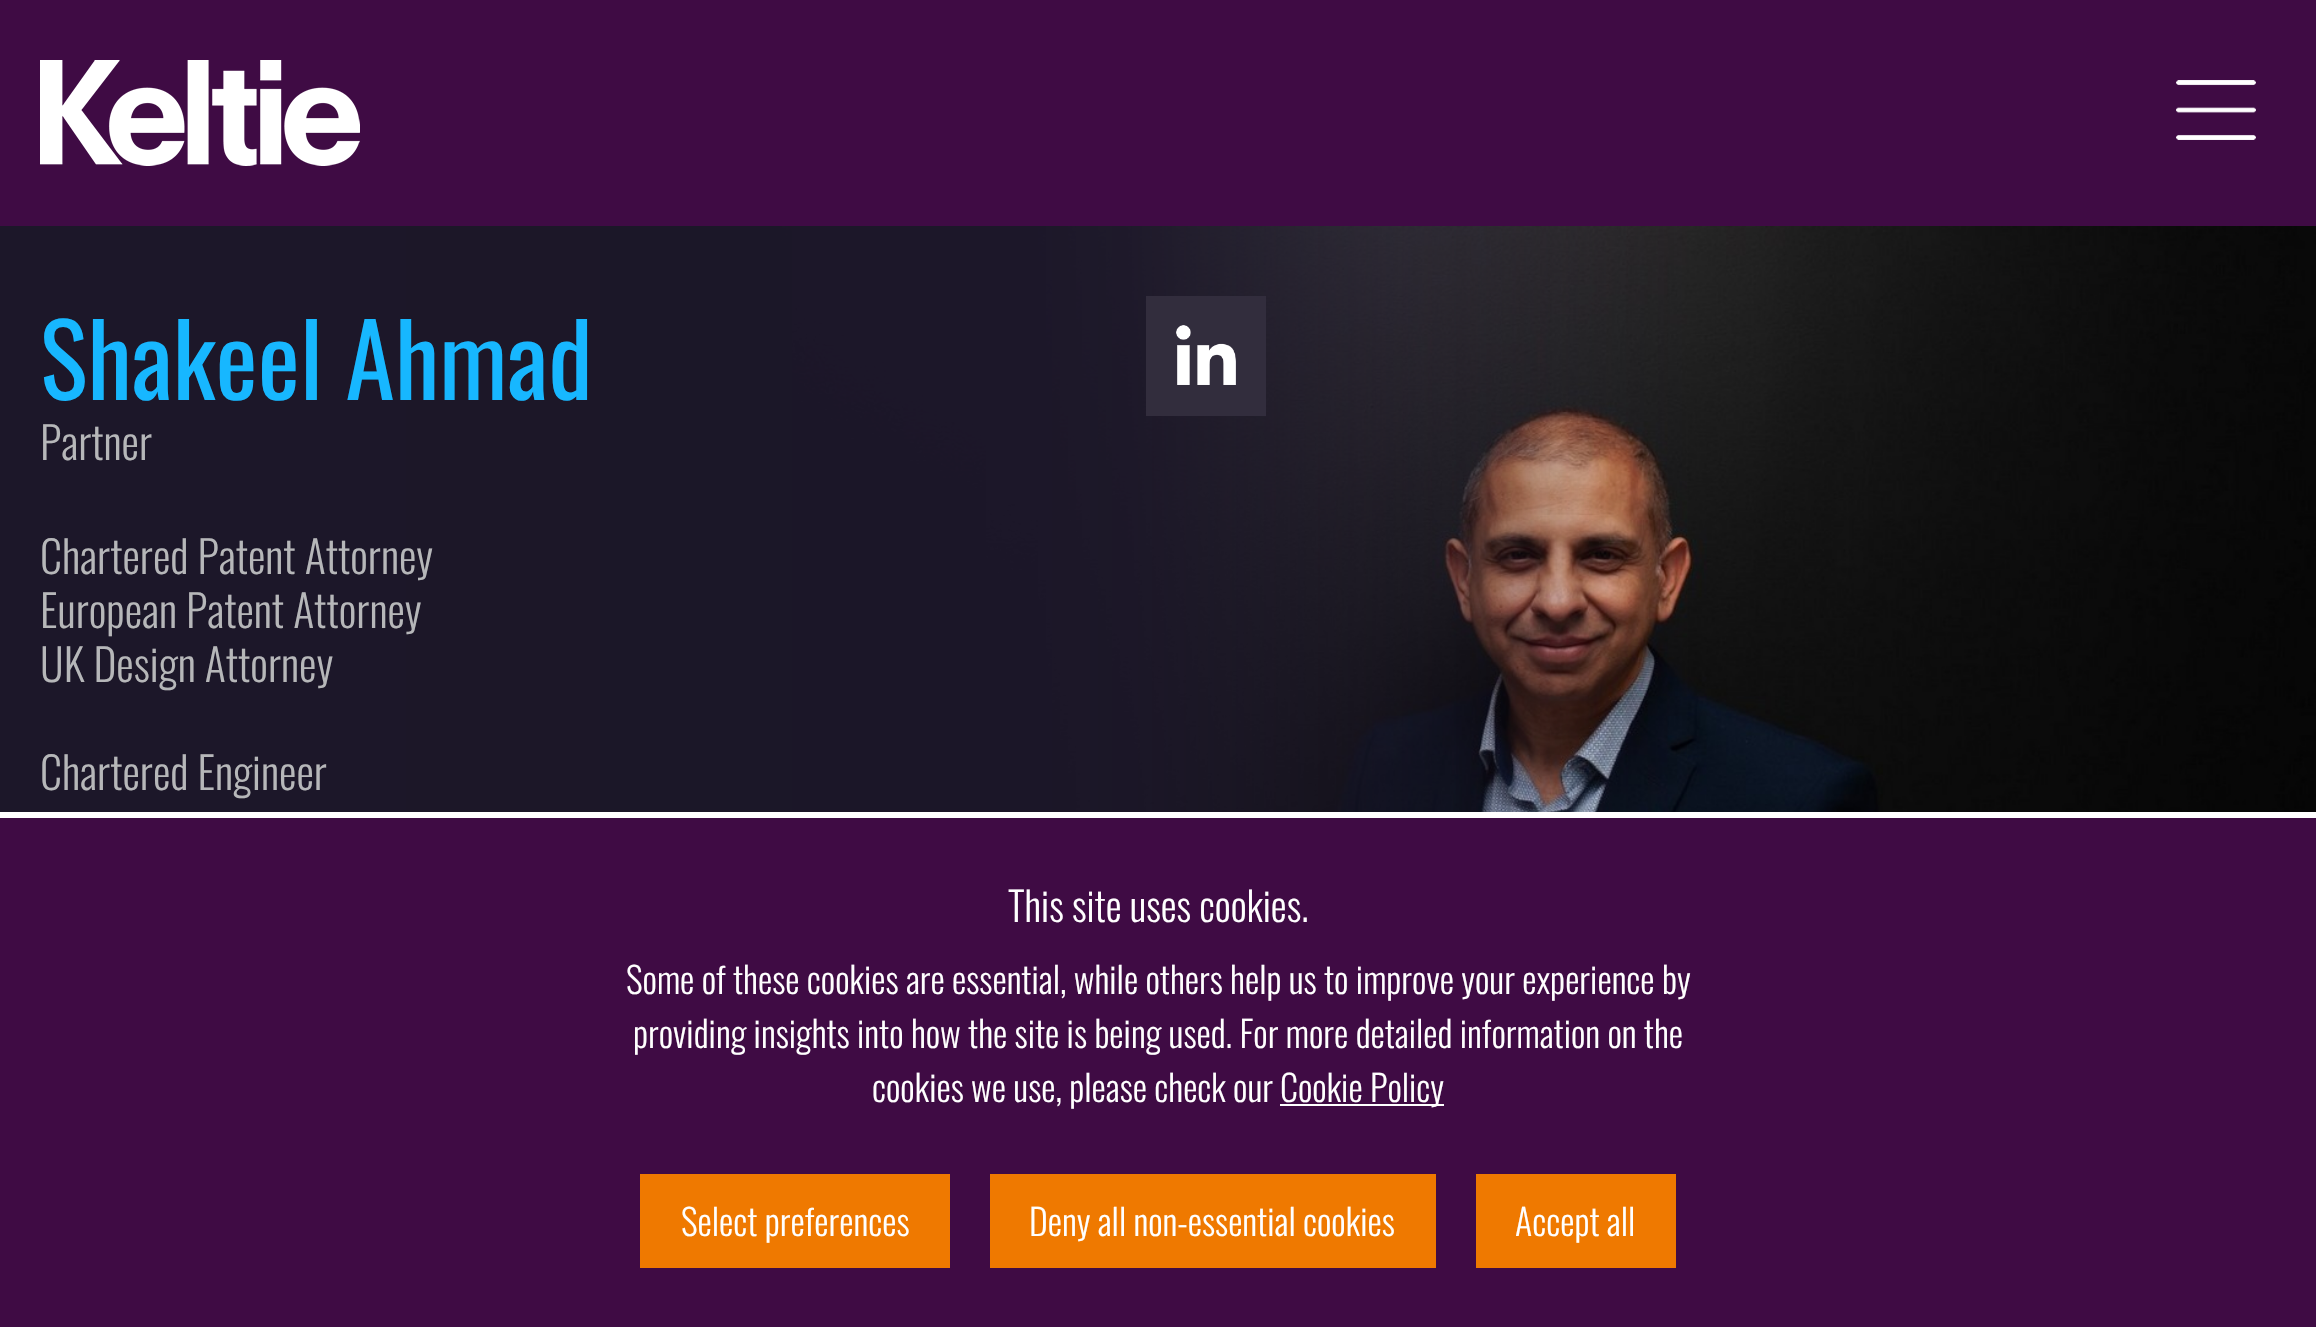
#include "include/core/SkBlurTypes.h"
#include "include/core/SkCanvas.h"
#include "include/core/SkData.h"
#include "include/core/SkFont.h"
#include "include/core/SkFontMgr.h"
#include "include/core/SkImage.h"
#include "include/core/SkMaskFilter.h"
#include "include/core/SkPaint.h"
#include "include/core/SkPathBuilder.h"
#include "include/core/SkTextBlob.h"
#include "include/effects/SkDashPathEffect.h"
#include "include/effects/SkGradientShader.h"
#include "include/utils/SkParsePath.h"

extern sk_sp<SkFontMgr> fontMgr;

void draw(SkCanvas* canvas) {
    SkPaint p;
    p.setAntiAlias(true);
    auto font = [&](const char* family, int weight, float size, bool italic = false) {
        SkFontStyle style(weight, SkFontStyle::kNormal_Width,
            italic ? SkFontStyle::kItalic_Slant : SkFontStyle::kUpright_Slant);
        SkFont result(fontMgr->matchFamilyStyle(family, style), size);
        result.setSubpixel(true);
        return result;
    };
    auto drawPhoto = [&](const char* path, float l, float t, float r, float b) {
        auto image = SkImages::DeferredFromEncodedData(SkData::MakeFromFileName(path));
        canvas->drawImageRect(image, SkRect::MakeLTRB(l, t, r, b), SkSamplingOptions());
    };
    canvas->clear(0xFF3F0B44);
    drawPhoto("media/1.png", 40, 60, 360, 166);
    drawPhoto("media/2.png", 2176, 80, 2256, 140);
    drawPhoto("media/3.png", 18, 226, 2316, 812);
    drawPhoto("media/4.png", 0, 226, 1688, 812);
    auto font1 = font("Oswald", 400, 100);
    p.setColor(0xFF17B7FF);
    canvas->drawString("Shakeel Ahmad", 40, 400, font1, p);
    p.setColor(0xFF322D3D);
    canvas->drawRect(SkRect::MakeLTRB(1146, 296, 1266, 416), p);
    drawPhoto("media/5.png", 1176, 325, 1236, 385);
    auto font2 = font("Oswald", 300, 44);
    p.setColor(0xFFB6B7B9);
    {
        const struct { const char* s; float x, y; } items[] = {
            {"Partner", 40, 460},
            {"Chartered Patent Attorney", 40, 574},
            {"European Patent Attorney", 40, 628},
            {"UK Design Attorney", 40, 682},
            {"Chartered Engineer", 40, 790},
        };
        for (auto [s, x, y] : items) {
            canvas->drawString(s, x, y, font2, p);
        }
    }
    p.setColor(0xFFFFFFFF);
    canvas->drawRect(SkRect::MakeLTRB(0, 812, 2316, 818), p);
    auto font3 = font("Oswald", 300, 40);
    canvas->drawString("This site uses cookies.", 1008, 922, font3, p);
    auto font4 = font("Oswald", 300, 36);
    {
        const struct { const char* s; float x, y; } items[] = {
            {"Some of these cookies are essential, while others help us to improve your experience by", 626, 994},
            {"providing insights into how the site is being used. For more detailed information on the", 633, 1048},
            {"cookies we use, please check our", 872, 1102},
        };
        for (auto [s, x, y] : items) {
            canvas->drawString(s, x, y, font4, p);
        }
    }
    canvas->drawRect(SkRect::MakeLTRB(1280, 1104, 1444, 1106), p);
    canvas->drawString("Cookie Policy", 1280, 1102, font4, p);
    p.setColor(0xFFEF7900);
    canvas->drawRect(SkRect::MakeLTRB(640, 1174, 950, 1268), p);
    p.setColor(0xFFFFFFFF);
    canvas->drawString("Select preferences", 681, 1236, font4, p);
    p.setColor(0xFFEF7900);
    canvas->drawRect(SkRect::MakeLTRB(990, 1174, 1436, 1268), p);
    p.setColor(0xFFFFFFFF);
    canvas->drawString("Deny all non-essential cookies", 1029, 1236, font4, p);
    p.setColor(0xFFEF7900);
    canvas->drawRect(SkRect::MakeLTRB(1476, 1174, 1676, 1268), p);
    p.setColor(0xFFFFFFFF);
    canvas->drawString("Accept all", 1515, 1236, font4, p);
}
